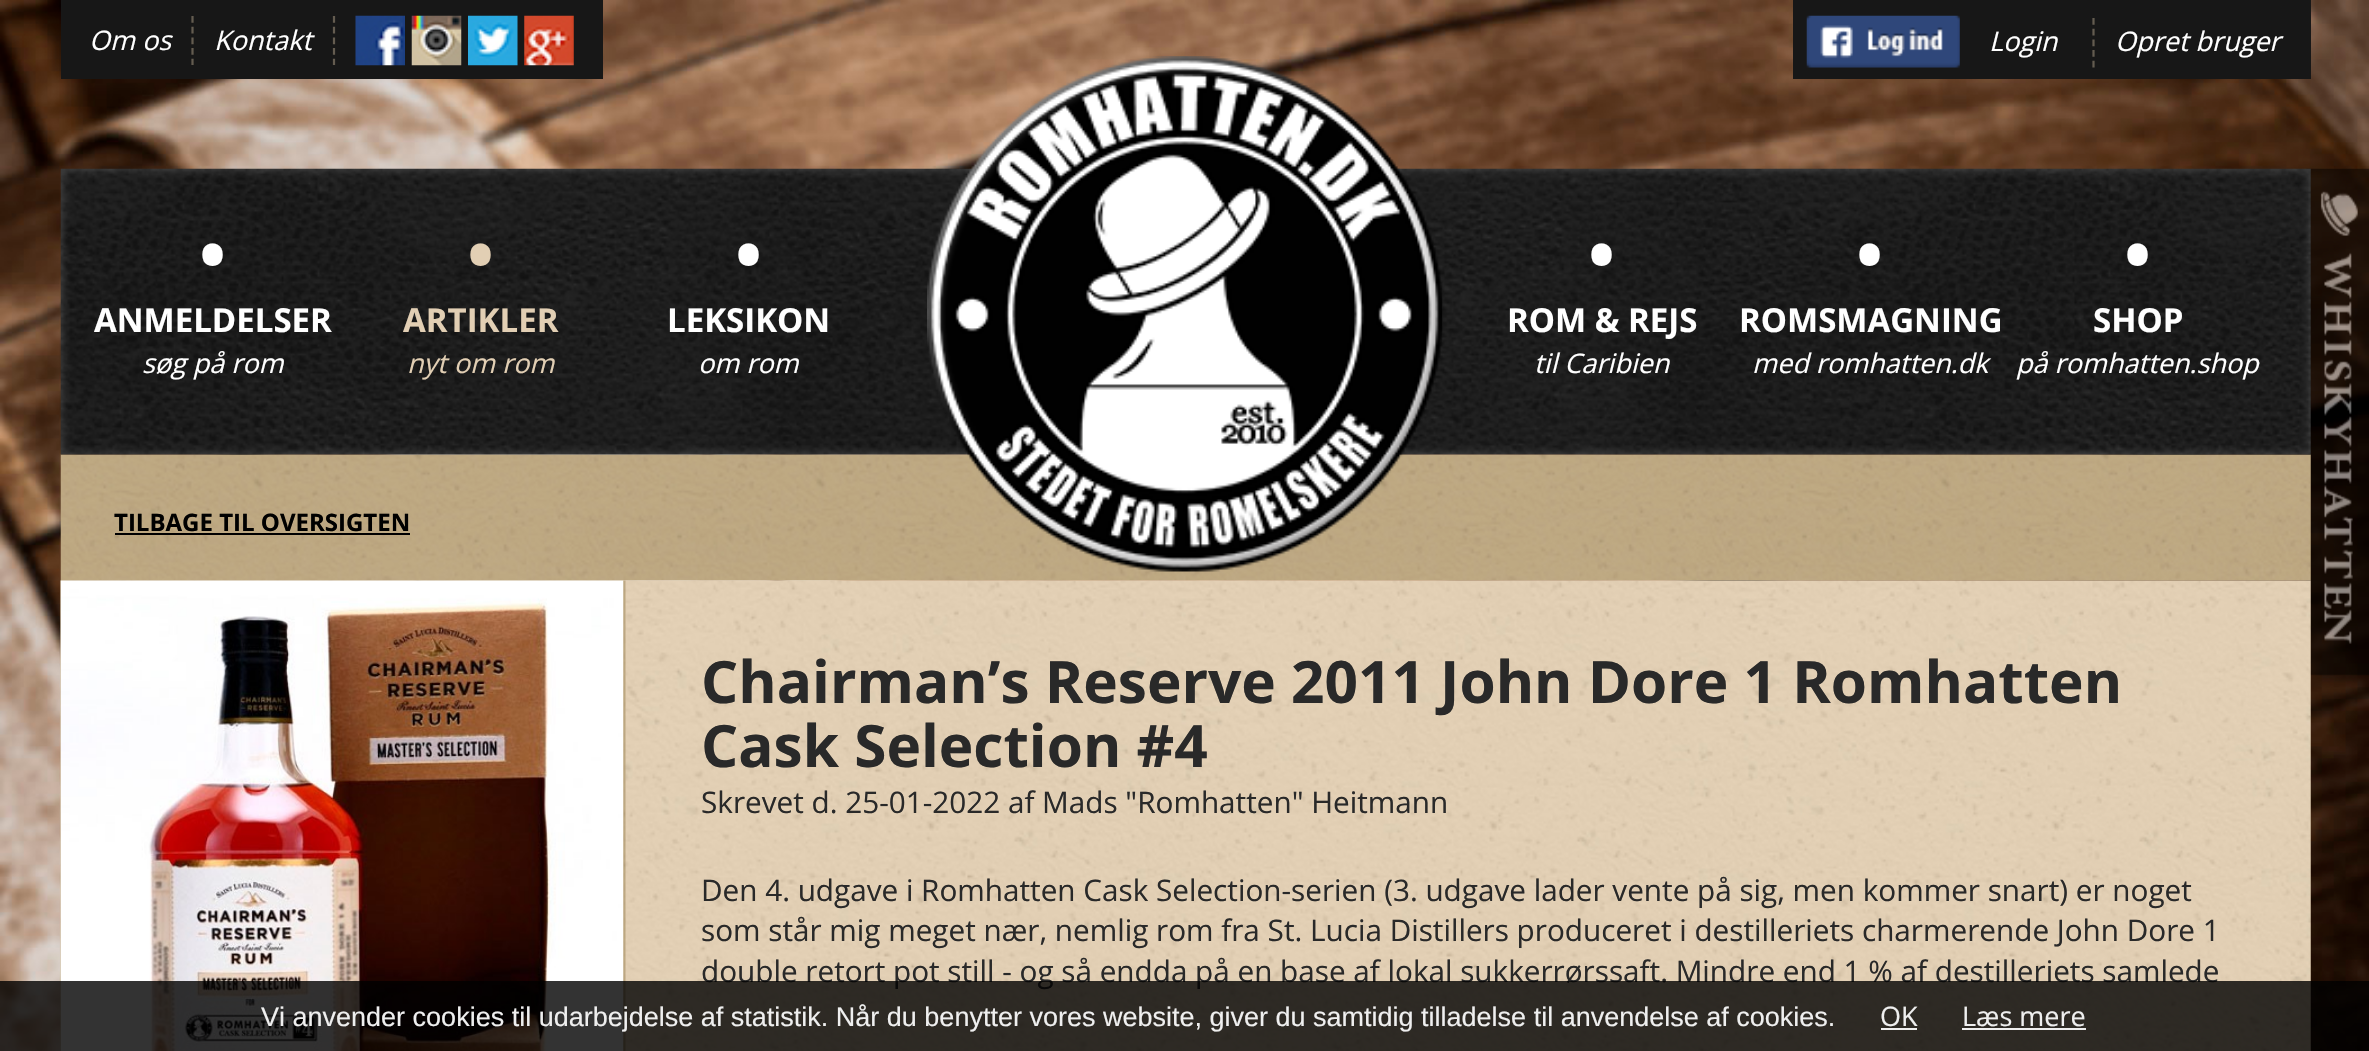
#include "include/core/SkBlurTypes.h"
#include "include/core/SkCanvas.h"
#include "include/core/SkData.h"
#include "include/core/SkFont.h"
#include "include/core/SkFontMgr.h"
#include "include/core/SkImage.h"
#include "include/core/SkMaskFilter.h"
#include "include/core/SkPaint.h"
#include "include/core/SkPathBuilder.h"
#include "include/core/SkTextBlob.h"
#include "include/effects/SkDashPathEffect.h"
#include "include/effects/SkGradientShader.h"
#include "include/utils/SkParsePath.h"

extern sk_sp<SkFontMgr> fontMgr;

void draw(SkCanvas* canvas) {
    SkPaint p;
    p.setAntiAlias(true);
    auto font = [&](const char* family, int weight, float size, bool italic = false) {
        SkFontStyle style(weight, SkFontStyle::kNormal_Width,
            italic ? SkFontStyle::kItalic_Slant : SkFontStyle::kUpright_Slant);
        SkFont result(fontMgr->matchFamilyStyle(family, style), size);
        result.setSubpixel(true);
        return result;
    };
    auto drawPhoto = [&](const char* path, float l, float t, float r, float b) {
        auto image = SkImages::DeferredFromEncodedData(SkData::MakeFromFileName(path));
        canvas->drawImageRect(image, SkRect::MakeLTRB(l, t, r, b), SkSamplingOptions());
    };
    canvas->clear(0xFFFFFFFF);
    drawPhoto("media/1.png", 0, 0, 2369, 1051);
    p.setColor(0xFF171717);
    canvas->drawRect(SkRect::MakeLTRB(61, 0, 603, 79), p);
    auto font1 = font("Open Sans", 400, 27, true);
    p.setColor(0xFFFFFFFF);
    canvas->drawString("Om os", 89, 50, font1, p);
    p.setStyle(SkPaint::kStroke_Style);
    p.setStrokeWidth(2.2f);
    p.setColor(0xFF645C50);
    p.setPathEffect(SkDashPathEffect::Make({{6.75f, 3.94f}}, 0));
    canvas->drawPath(SkPathBuilder().moveTo(192.5f, 16).lineTo(192.5f, 65).detach(), p);
    p.setPathEffect(nullptr);
    p.setStyle(SkPaint::kFill_Style);
    p.setColor(0xFFFFFFFF);
    canvas->drawString("Kontakt", 214, 50, font1, p);
    p.setStyle(SkPaint::kStroke_Style);
    p.setColor(0xFF645C50);
    p.setPathEffect(SkDashPathEffect::Make({{6.75f, 3.94f}}, 0));
    canvas->drawPath(SkPathBuilder().moveTo(334, 16).lineTo(334, 65).detach(), p);
    p.setPathEffect(nullptr);
    drawPhoto("media/2.png", 355, 15, 405, 66);
    drawPhoto("media/3.png", 411, 15, 462, 66);
    drawPhoto("media/4.png", 468, 15, 518, 66);
    drawPhoto("media/5.png", 524, 15, 574, 66);
    p.setStyle(SkPaint::kFill_Style);
    p.setColor(0xFF171717);
    canvas->drawRect(SkRect::MakeLTRB(1793, 0, 2311, 79), p);
    drawPhoto("media/6.png", 1806, 15, 1960, 68);
    p.setColor(0xFFFFFFFF);
    canvas->drawString("Login", 1989, 51, font1, p);
    p.setStyle(SkPaint::kStroke_Style);
    p.setColor(0xFF645C50);
    p.setPathEffect(SkDashPathEffect::Make({{6.75f, 3.94f}}, 0));
    canvas->drawPath(SkPathBuilder().moveTo(2093.5f, 18).lineTo(2093.5f, 67.5f).detach(), p);
    p.setPathEffect(nullptr);
    p.setStyle(SkPaint::kFill_Style);
    p.setColor(0xFFFFFFFF);
    canvas->drawString("Opret bruger", 2115, 51, font1, p);
    drawPhoto("media/14.png", 2306, 168, 2369, 676);
    drawPhoto("media/9.png", 60, 454, 2311, 581);
    drawPhoto("media/7.png", 60, 168, 2311, 455);
    drawPhoto("media/8.png", 927, 56, 1443, 572);
    auto font2 = font("Open Sans", 700, 72);
    canvas->drawString("•", 199, 281, font2, p);
    auto font3 = font("Open Sans", 700, 33);
    canvas->drawString("ANMELDELSER", 94, 332, font3, p);
    canvas->drawString("søg på rom", 142, 373, font1, p);
    p.setColor(0xFFE2CFB4);
    canvas->drawString("•", 467, 281, font2, p);
    canvas->drawString("ARTIKLER", 403, 332, font3, p);
    canvas->drawString("nyt om rom", 407, 373, font1, p);
    p.setColor(0xFFFFFFFF);
    canvas->drawString("•", 735, 281, font2, p);
    canvas->drawString("LEKSIKON", 667, 332, font3, p);
    canvas->drawString("om rom", 698, 373, font1, p);
    canvas->drawString("•", 1588, 281, font2, p);
    canvas->drawString("ROM & REJS", 1507, 332, font3, p);
    canvas->drawString("til Caribien", 1534, 373, font1, p);
    canvas->drawString("•", 1856, 281, font2, p);
    canvas->drawString("ROMSMAGNING", 1739, 332, font3, p);
    canvas->drawString("med romhatten.dk", 1752, 373, font1, p);
    canvas->drawString("•", 2124, 281, font2, p);
    canvas->drawString("SHOP", 2093, 332, font3, p);
    canvas->drawString("på romhatten.shop", 2016, 373, font1, p);
    auto font4 = font("Open Sans", 700, 24);
    p.setColor(0xFF000000);
    canvas->drawString("TILBAGE TIL OVERSIGTEN", 114, 531, font4, p);
    canvas->drawRect(SkRect::MakeLTRB(115, 533, 410, 535), p);
    drawPhoto("media/10.png", 60, 580, 2311, 1051);
    drawPhoto("media/11.png", 60, 580, 626, 1051);
    drawPhoto("media/12.png", 60, 580, 623, 1051);
    drawPhoto("media/13.png", 60, 580, 624, 1051);
    auto font5 = font("Open Sans", 700, 58.5f);
    p.setColor(0xFF292929);
    canvas->drawString("Chairman’s Reserve 2011 John Dore 1 Romhatten", 701, 703, font5, p);
    canvas->drawString("Cask Selection #4", 701, 767, font5, p);
    auto font6 = font("Open Sans", 400, 29.7f);
    {
        const struct { const char* s; float x, y; } items[] = {
            {"Skrevet d. 25-01-2022 af Mads \"Romhatten\" Heitmann", 701, 813},
            {"Den 4. udgave i Romhatten Cask Selection-serien (3. udgave lader vente på sig, men kommer snart) er noget", 701, 901},
            {"som står mig meget nær, nemlig rom fra St. Lucia Distillers produceret i destilleriets charmerende John Dore 1", 701, 941},
            {"double retort pot still - og så endda på en base af lokal sukkerrørssaft. Mindre end 1 % af destilleriets samlede", 701, 982},
        };
        for (auto [s, x, y] : items) {
            canvas->drawString(s, x, y, font6, p);
        }
    }
    p.setColor(0xCC000000);
    canvas->drawRect(SkRect::MakeLTRB(0, 981, 2369, 1051), p);
    auto font7 = font("Liberation Sans", 400, 27);
    p.setColor(0xFFEFEFEF);
    canvas->drawString("Vi anvender cookies til udarbejdelse af statistik. Når du benytter vores website, giver du samtidig tilladelse til anvendelse af cookies.", 261, 1026, font7, p);
    auto font8 = font("Open Sans", 400, 27);
    canvas->drawString("OK", 1880, 1026, font8, p);
    canvas->drawRect(SkRect::MakeLTRB(1881, 1028, 1917, 1030), p);
    canvas->drawString("Læs mere", 1962, 1026, font8, p);
    canvas->drawRect(SkRect::MakeLTRB(1962, 1028, 2086, 1030), p);
}
